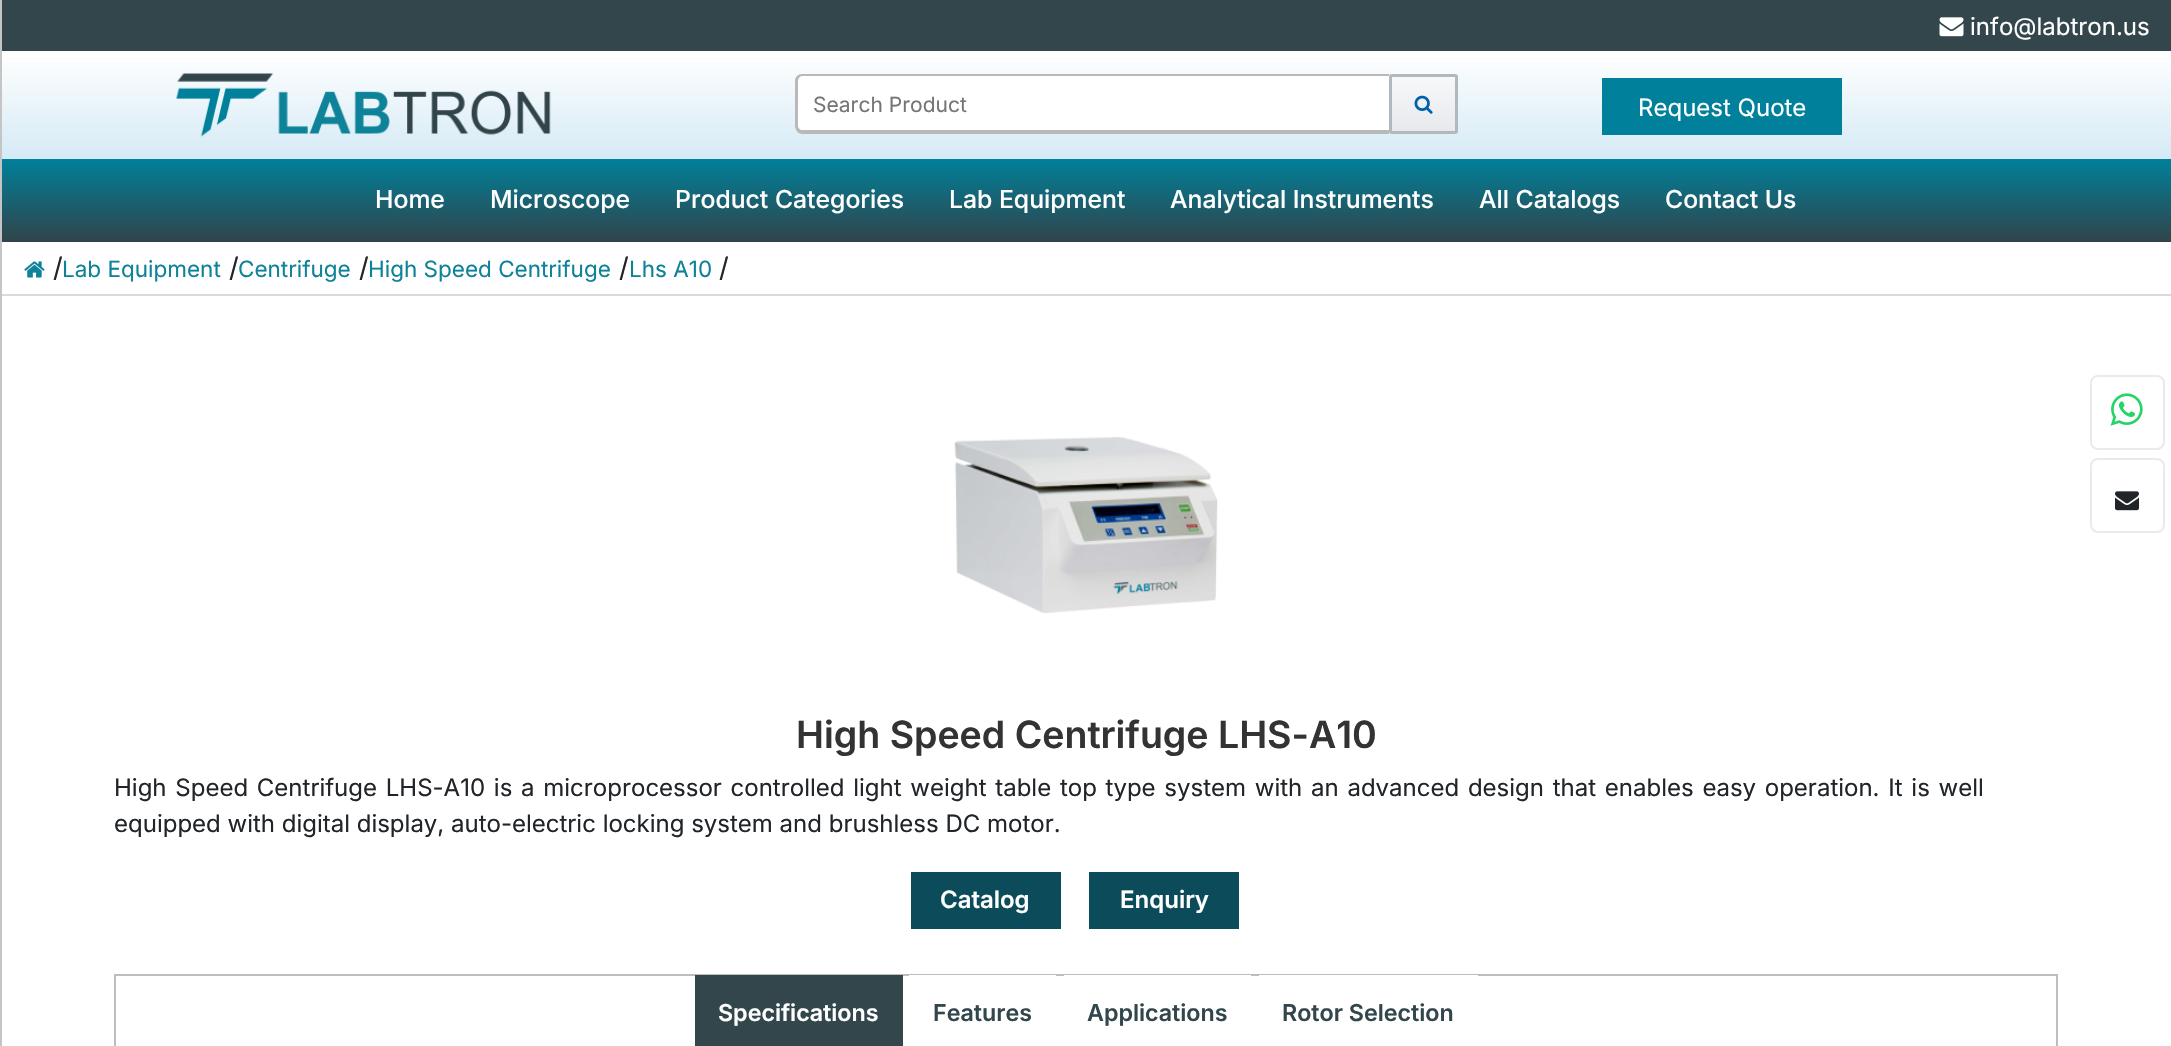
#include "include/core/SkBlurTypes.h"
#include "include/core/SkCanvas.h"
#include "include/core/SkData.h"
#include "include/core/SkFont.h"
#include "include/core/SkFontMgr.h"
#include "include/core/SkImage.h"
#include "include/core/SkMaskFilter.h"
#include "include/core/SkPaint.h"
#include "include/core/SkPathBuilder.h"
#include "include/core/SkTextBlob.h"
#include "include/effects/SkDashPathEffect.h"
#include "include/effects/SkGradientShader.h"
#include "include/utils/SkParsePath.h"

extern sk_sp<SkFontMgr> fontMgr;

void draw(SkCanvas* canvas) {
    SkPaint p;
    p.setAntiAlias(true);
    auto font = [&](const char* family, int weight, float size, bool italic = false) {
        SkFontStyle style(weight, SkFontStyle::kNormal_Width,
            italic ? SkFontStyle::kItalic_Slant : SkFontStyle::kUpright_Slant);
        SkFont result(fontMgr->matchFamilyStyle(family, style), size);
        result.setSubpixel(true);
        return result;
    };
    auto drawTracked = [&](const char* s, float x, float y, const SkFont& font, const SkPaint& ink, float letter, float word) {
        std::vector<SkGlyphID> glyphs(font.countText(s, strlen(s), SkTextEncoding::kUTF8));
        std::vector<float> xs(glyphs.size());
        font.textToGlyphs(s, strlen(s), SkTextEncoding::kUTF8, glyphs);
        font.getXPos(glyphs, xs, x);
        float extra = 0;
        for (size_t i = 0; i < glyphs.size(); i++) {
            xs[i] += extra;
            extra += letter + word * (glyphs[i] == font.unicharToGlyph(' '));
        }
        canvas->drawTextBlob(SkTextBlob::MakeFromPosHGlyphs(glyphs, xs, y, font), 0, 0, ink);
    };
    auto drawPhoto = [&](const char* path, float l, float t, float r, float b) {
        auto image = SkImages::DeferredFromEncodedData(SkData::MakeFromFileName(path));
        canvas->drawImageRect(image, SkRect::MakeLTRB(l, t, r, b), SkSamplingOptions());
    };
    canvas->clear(0xFFFFFFFF);
    {
        const struct { float l, t, r, b; SkColor color; } items[] = {
            {0, 294, 2171, 296, 0xFFDADADA},
            {0, 0, 2, 1046, 0xFFC5C5C5},
            {2, 0, 2171, 51, 0xFF32464C},
        };
        for (auto [l, t, r, b, color] : items) {
            p.setColor(color);
            canvas->drawRect(SkRect::MakeLTRB(l, t, r, b), p);
        }
    }
    drawPhoto("media/1.png", 1939, 17, 1964, 37);
    auto font1 = font("Inter", 400, 24);
    p.setColor(0xFFFFFFFF);
    canvas->drawString("info@labtron.us", 1970, 35, font1, p);
    {
        const SkColor colors[] = {0xFFFFFFFF, 0xFFD5EAF5};
        const float stops[] = {0, 1};
        const SkPoint ends[] = {{0, 51}, {0, 159}};
        p.setShader(SkGradientShader::MakeLinear(ends, colors, stops, 2, SkTileMode::kClamp));
        p.setAlpha(255);
    }
    canvas->drawRect(SkRect::MakeLTRB(2, 57, 2171, 159), p);
    drawPhoto("media/2.png", 176, 73, 551, 137);
    p.setShader(nullptr);
    p.setColor(0xFFFFFFFF);
    canvas->drawPath(SkPathBuilder().moveTo(803, 74).lineTo(1389, 74).lineTo(1389, 134).lineTo(803, 134).cubicTo(798.5f, 134, 795, 130.5f, 795, 126).lineTo(795, 82).cubicTo(795, 77.5f, 798.5f, 74, 803, 74).close().detach(), p);
    p.setColor(0xFFB9B9B9);
    canvas->drawPath(SkPathBuilder(SkPathFillType::kEvenOdd).moveTo(802, 74).lineTo(1389, 74).lineTo(1389, 134).lineTo(802, 134).cubicTo(798, 134, 795, 130, 795, 126).lineTo(795, 81).cubicTo(795, 77, 798, 74, 802, 74).close().moveTo(802, 76).lineTo(1389, 76).lineTo(1389, 130).lineTo(802, 130).cubicTo(800, 130, 798, 128, 798, 126).lineTo(798, 81).cubicTo(798, 79, 800, 76, 802, 76).close().detach(), p);
    auto font2 = font("Inter", 400, 21);
    p.setColor(0xFF757575);
    canvas->drawString("Search Product", 813, 112, font2, p);
    {
        const SkColor colors[] = {0xFFF7F8FA, 0xFFE7E9EC};
        const float stops[] = {0, 1};
        const SkPoint ends[] = {{1424, 77}, {1424, 131}};
        p.setShader(SkGradientShader::MakeLinear(ends, colors, stops, 2, SkTileMode::kClamp));
        p.setAlpha(255);
    }
    canvas->drawRect(SkRect::MakeLTRB(1392, 77, 1455, 131), p);
    p.setStyle(SkPaint::kStroke_Style);
    p.setStrokeWidth(3);
    p.setShader(nullptr);
    p.setColor(0xFFB0B9BF);
    canvas->drawRoundRect(SkRect::MakeLTRB(1390.5f, 75.5f, 1456.5f, 132.5f), 1.5f, 1.5f, p);
    drawPhoto("media/3.png", 1414, 95, 1433, 114);
    p.setStyle(SkPaint::kFill_Style);
    p.setColor(0xFF00809A);
    canvas->drawRect(SkRect::MakeLTRB(1602, 78, 1842, 135), p);
    p.setColor(0xFFFFFFFF);
    canvas->drawString("Request Quote", 1638, 116, font1, p);
    {
        const SkColor colors[] = {0xFF00809A, 0xFF31444A};
        const float stops[] = {0, 1};
        const SkPoint ends[] = {{1086, 159}, {1086, 242}};
        p.setShader(SkGradientShader::MakeLinear(ends, colors, stops, 2, SkTileMode::kClamp));
        p.setAlpha(255);
    }
    canvas->drawRect(SkRect::MakeLTRB(2, 159, 2171, 242), p);
    auto font3 = font("Inter", 500, 24.75f);
    p.setShader(nullptr);
    p.setColor(0xFFFFFFFF);
    {
        const struct { const char* s; float x, y; } items[] = {
            {"Home", 375, 208},
            {"Microscope", 490, 208},
            {"Product Categories", 675, 208},
            {"Lab Equipment", 949, 208},
            {"Analytical Instruments", 1170, 208},
            {"All Catalogs", 1479, 208},
            {"Contact Us", 1665, 208},
        };
        for (auto [s, x, y] : items) {
            canvas->drawString(s, x, y, font3, p);
        }
    }
    drawPhoto("media/4.png", 24, 261, 45, 278);
    auto font4 = font("Inter", 400, 27);
    p.setColor(0xFF212529);
    canvas->drawString("/", 53, 277, font4, p);
    auto font5 = font("Inter", 400, 22.5f);
    p.setColor(0xFF0E8299);
    canvas->drawString("Lab Equipment", 62, 277, font5, p);
    p.setColor(0xFF212529);
    canvas->drawString("/", 229, 277, font4, p);
    p.setColor(0xFF0E8299);
    canvas->drawString("Centrifuge", 238, 277, font5, p);
    p.setColor(0xFF212529);
    canvas->drawString("/", 359, 277, font4, p);
    p.setColor(0xFF0E8299);
    canvas->drawString("High Speed Centrifuge", 368, 277, font5, p);
    p.setColor(0xFF212529);
    canvas->drawString("/", 619, 277, font4, p);
    p.setColor(0xFF0E8299);
    canvas->drawString("Lhs A10", 629, 277, font5, p);
    p.setColor(0xFF212529);
    canvas->drawString("/", 719, 277, font4, p);
    p.setStyle(SkPaint::kStroke_Style);
    p.setStrokeWidth(2);
    p.setColor(0xFFEAEAEA);
    canvas->drawRoundRect(SkRect::MakeLTRB(2091, 376, 2164, 449), 7, 7, p);
    drawPhoto("media/5.png", 2110, 393, 2143, 426);
    canvas->drawRoundRect(SkRect::MakeLTRB(2091, 459, 2164, 532), 7, 7, p);
    drawPhoto("media/6.png", 2115, 491, 2139, 511);
    drawPhoto("media/7.png", 954, 436, 1218, 614);
    auto font6 = font("Inter", 600, 37.5f);
    p.setStyle(SkPaint::kFill_Style);
    p.setColor(0xFF333333);
    canvas->drawString("High Speed Centrifuge LHS-A10", 796, 748, font6, p);
    p.setColor(0xFF212529);
    drawTracked("High Speed Centrifuge LHS-A10 is a microprocessor controlled light weight table top type system with an advanced design that enables easy operation. It is well", 114, 796, font1, p, 0, 2);
    canvas->drawString("equipped with digital display, auto-electric locking system and brushless DC motor.", 114, 832, font1, p);
    p.setColor(0xFF0C4C5A);
    canvas->drawRect(SkRect::MakeLTRB(911, 872, 1061, 929), p);
    auto font7 = font("Inter", 600, 24);
    p.setColor(0xFFFFFFFF);
    canvas->drawString("Catalog", 940, 908, font7, p);
    p.setColor(0xFF0C4C5A);
    canvas->drawRect(SkRect::MakeLTRB(1089, 872, 1239, 929), p);
    p.setColor(0xFFFFFFFF);
    canvas->drawString("Enquiry", 1120, 908, font7, p);
    p.setStyle(SkPaint::kStroke_Style);
    p.setColor(0xFFBDBDBD);
    canvas->drawRect(SkRect::MakeLTRB(115, 975, 2057, 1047), p);
    p.setStyle(SkPaint::kFill_Style);
    p.setColor(0xFF32464C);
    canvas->drawRect(SkRect::MakeLTRB(695, 975, 903, 1046), p);
    auto font8 = font("Inter", 600, 23.25f);
    p.setColor(0xFFFFFFFF);
    canvas->drawString("Specifications", 718, 1021, font8, p);
    canvas->drawRect(SkRect::MakeLTRB(909, 975, 1056, 976), p);
    p.setColor(0xFF32464C);
    canvas->drawString("Features", 933, 1021, font8, p);
    p.setColor(0xFFFFFFFF);
    canvas->drawRect(SkRect::MakeLTRB(1064, 975, 1251, 976), p);
    p.setColor(0xFF32464C);
    canvas->drawString("Applications", 1087, 1021, font8, p);
    p.setColor(0xFFFFFFFF);
    canvas->drawRect(SkRect::MakeLTRB(1259, 975, 1478, 976), p);
    p.setColor(0xFF32464C);
    canvas->drawString("Rotor Selection", 1282, 1021, font8, p);
}
